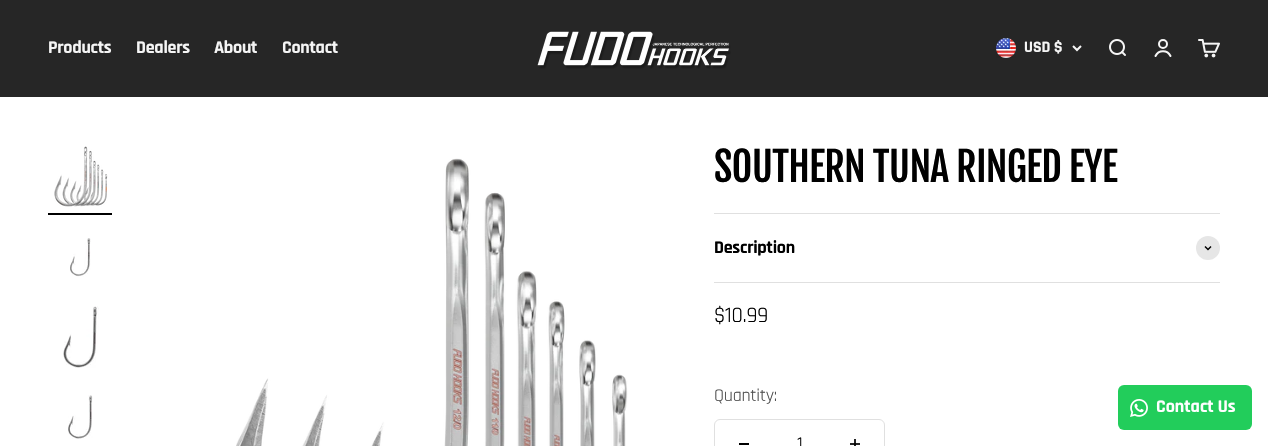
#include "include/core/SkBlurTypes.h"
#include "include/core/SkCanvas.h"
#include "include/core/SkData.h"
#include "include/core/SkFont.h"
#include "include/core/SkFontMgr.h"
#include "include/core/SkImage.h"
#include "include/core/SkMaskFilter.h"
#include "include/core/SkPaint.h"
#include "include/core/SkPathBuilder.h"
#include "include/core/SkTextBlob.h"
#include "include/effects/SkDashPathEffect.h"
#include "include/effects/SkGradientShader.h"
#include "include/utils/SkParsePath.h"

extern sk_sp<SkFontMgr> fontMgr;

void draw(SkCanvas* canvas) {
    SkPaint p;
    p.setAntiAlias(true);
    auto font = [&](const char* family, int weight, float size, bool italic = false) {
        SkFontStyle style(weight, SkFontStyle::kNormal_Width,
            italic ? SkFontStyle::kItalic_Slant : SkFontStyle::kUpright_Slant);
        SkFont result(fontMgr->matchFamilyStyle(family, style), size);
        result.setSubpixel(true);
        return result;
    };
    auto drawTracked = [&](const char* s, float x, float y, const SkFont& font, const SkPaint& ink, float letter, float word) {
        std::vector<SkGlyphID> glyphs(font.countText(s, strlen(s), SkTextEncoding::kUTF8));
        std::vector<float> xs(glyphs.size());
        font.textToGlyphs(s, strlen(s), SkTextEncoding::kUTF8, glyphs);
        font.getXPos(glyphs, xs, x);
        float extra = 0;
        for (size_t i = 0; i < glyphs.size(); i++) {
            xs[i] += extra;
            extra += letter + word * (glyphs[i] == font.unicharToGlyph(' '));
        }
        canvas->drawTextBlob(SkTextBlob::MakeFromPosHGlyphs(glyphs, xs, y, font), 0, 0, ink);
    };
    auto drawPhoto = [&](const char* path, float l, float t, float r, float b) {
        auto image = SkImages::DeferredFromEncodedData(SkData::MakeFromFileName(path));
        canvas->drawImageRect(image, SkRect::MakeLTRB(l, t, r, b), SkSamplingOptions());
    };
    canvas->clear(0xFFFFFFFF);
    p.setColor(0xFF262626);
    canvas->drawRect(SkRect::MakeLTRB(850, 443, 860, 445), p);
    canvas->drawRect(SkRect::MakeLTRB(0, 0, 1268, 97), p);
    auto font1 = font("Rajdhani", 700, 18);
    p.setColor(0xFFF5F5F5);
    {
        const struct { const char* s; float x, y; } items[] = {
            {"Products", 48, 53},
            {"Dealers", 136, 53},
            {"About", 214, 53},
            {"Contact", 282, 53},
        };
        for (auto [s, x, y] : items) {
            drawTracked(s, x, y, font1, p, -0.25f, 0);
        }
    }
    drawPhoto("media/1.png", 537, 31, 731, 69);
    drawPhoto("media/2.png", 996, 38, 1016, 58);
    auto font2 = font("Rajdhani", 700, 16);
    canvas->drawString("USD $", 1024, 52, font2, p);
    p.setStyle(SkPaint::kStroke_Style);
    p.setStrokeWidth(2);
    canvas->drawPath(SkPathBuilder().moveTo(1073, 46).lineTo(1077, 50).lineTo(1081, 46).detach(), p);
    drawPhoto("media/3.png", 1109, 39, 1126, 56);
    canvas->drawCircle(1163, 44, 4, p);
    p.setStrokeCap(SkPaint::kRound_Cap);
    canvas->drawPath(SkPathBuilder().moveTo(1155.5f, 56).cubicTo(1158.5f, 49.5f, 1167.5f, 49.5f, 1170.5f, 56).detach(), p);
    drawPhoto("media/4.png", 1198, 39, 1220, 58);
    drawPhoto("media/5.png", 54, 146, 108, 207);
    p.setStyle(SkPaint::kFill_Style);
    p.setColor(0xFF000000);
    canvas->drawRect(SkRect::MakeLTRB(48, 213, 112, 215), p);
    drawPhoto("media/6.png", 70, 238, 91, 277);
    drawPhoto("media/7.png", 63, 306, 99, 368);
    drawPhoto("media/8.png", 68, 395, 93, 439);
    drawPhoto("media/9.png", 236, 158, 628, 446);
    auto font3 = font("Fjalla One", 400, 40);
    drawTracked("SOUTHERN TUNA RINGED EYE", 714, 182, font3, p, -0.8f, 0);
    p.setColor(0xFFE0E0E0);
    canvas->drawRect(SkRect::MakeLTRB(714, 213, 1220, 214), p);
    canvas->drawRect(SkRect::MakeLTRB(714, 282, 1220, 283), p);
    p.setColor(0xFF000000);
    drawTracked("Description", 714, 253, font1, p, -0.25f, 0);
    p.setColor(0xFFE6E6E6);
    canvas->drawCircle(1208, 248, 12, p);
    p.setStyle(SkPaint::kStroke_Style);
    p.setStrokeWidth(1.5f);
    p.setStrokeCap(SkPaint::kButt_Cap);
    p.setColor(0xFF000000);
    canvas->drawPath(SkPathBuilder().moveTo(1205, 246.5f).lineTo(1208, 249.5f).lineTo(1211, 246.5f).detach(), p);
    auto font4 = font("Rajdhani", 400, 22);
    p.setStyle(SkPaint::kFill_Style);
    drawTracked("$10.99", 714, 322, font4, p, -0.25f, 0);
    auto font5 = font("Rajdhani", 400, 18);
    p.setColor(0xFF4D4D4D);
    drawTracked("Quantity:", 714, 401, font5, p, -0.25f, 0);
    p.setStyle(SkPaint::kStroke_Style);
    p.setStrokeWidth(1);
    p.setColor(0xFFE0E0E0);
    canvas->drawRoundRect(SkRect::MakeLTRB(714.5f, 419.5f, 884.5f, 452.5f), 5.5f, 5.5f, p);
    p.setStyle(SkPaint::kFill_Style);
    p.setColor(0xFF000000);
    canvas->drawRect(SkRect::MakeLTRB(739, 443, 749, 445), p);
    canvas->drawString("1", 797, 449, font5, p);
    p.setColor(0xFF262626);
    canvas->drawRect(SkRect::MakeLTRB(854, 439, 856, 446), p);
    p.setColor(0xFF060606);
    canvas->drawRect(SkRect::MakeLTRB(854, 443, 856, 445), p);
    p.setColor(0xFF22CD5B);
    canvas->drawRoundRect(SkRect::MakeLTRB(1118, 385, 1252, 430), 6, 6, p);
    drawPhoto("media/10.png", 1130, 399, 1148, 417);
    p.setColor(0xFFFFFFFF);
    canvas->drawString("Contact Us", 1156, 412, font1, p);
}
